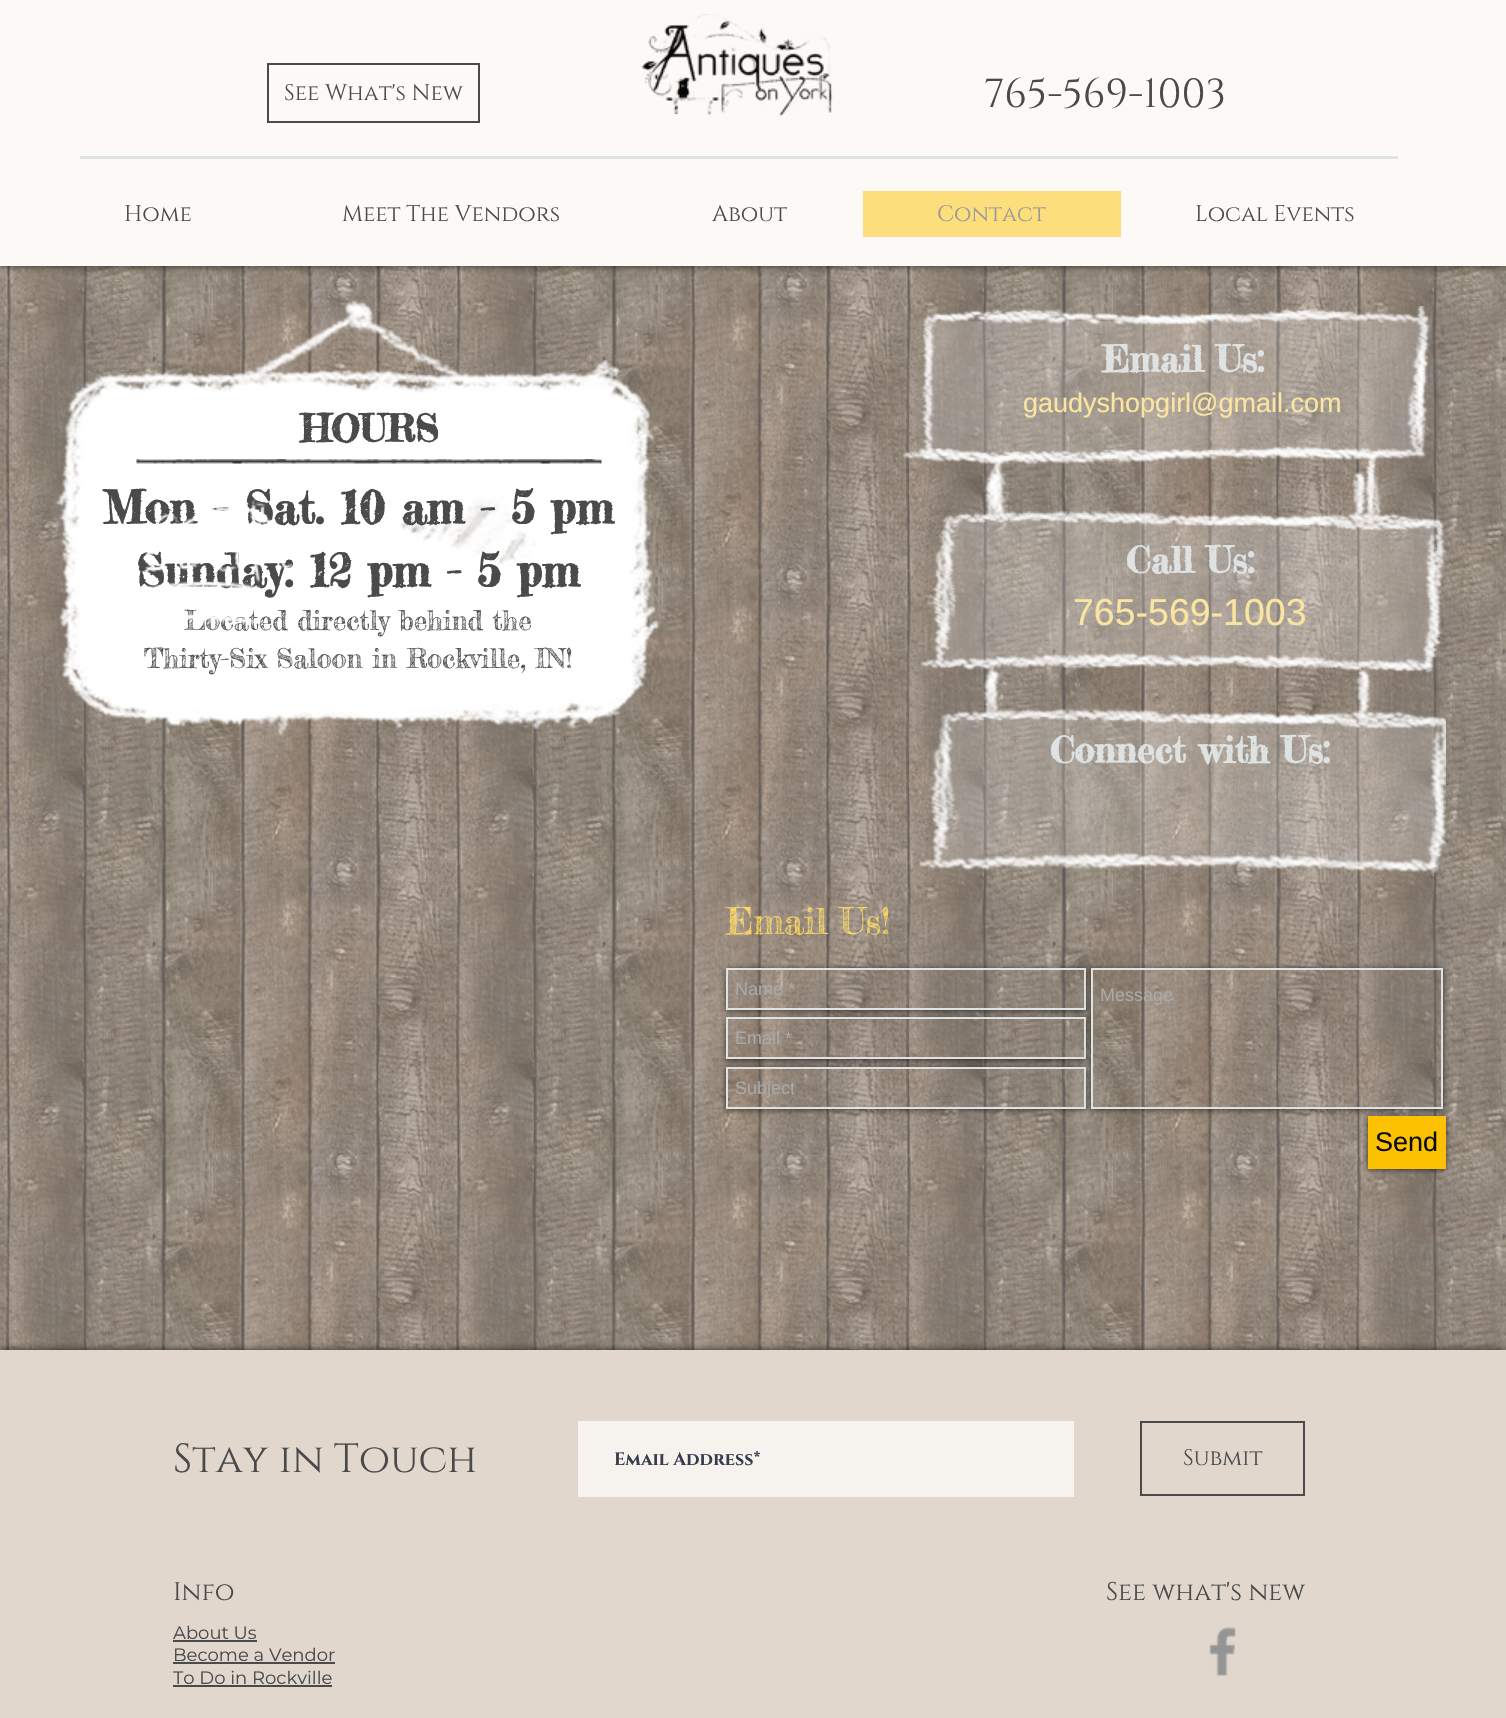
#include "include/core/SkBlurTypes.h"
#include "include/core/SkCanvas.h"
#include "include/core/SkData.h"
#include "include/core/SkFont.h"
#include "include/core/SkFontMgr.h"
#include "include/core/SkImage.h"
#include "include/core/SkMaskFilter.h"
#include "include/core/SkPaint.h"
#include "include/core/SkPathBuilder.h"
#include "include/core/SkTextBlob.h"
#include "include/effects/SkDashPathEffect.h"
#include "include/effects/SkGradientShader.h"
#include "include/utils/SkParsePath.h"

extern sk_sp<SkFontMgr> fontMgr;

void draw(SkCanvas* canvas) {
    SkPaint p;
    p.setAntiAlias(true);
    auto font = [&](const char* family, int weight, float size, bool italic = false) {
        SkFontStyle style(weight, SkFontStyle::kNormal_Width,
            italic ? SkFontStyle::kItalic_Slant : SkFontStyle::kUpright_Slant);
        SkFont result(fontMgr->matchFamilyStyle(family, style), size);
        result.setSubpixel(true);
        return result;
    };
    auto drawPhoto = [&](const char* path, float l, float t, float r, float b) {
        auto image = SkImages::DeferredFromEncodedData(SkData::MakeFromFileName(path));
        canvas->drawImageRect(image, SkRect::MakeLTRB(l, t, r, b), SkSamplingOptions());
    };
    canvas->clear(0xFFFCF9F6);
    drawPhoto("media/9.png", 0, 266, 1506, 1350);
    p.setColor(0xB3000000);
    p.setMaskFilter(SkMaskFilter::MakeBlur(kNormal_SkBlurStyle, 4));
    canvas->drawRect(SkRect::MakeLTRB(0, 0, 1506, 266), p);
    p.setMaskFilter(nullptr);
    p.setColor(0xFFFCF9F6);
    canvas->drawRect(SkRect::MakeLTRB(0, 0, 1506, 266), p);
    p.setStyle(SkPaint::kStroke_Style);
    p.setStrokeWidth(2);
    p.setColor(0xFF4A4A4A);
    canvas->drawRect(SkRect::MakeLTRB(268, 64, 479, 122), p);
    auto font1 = font("Cinzel", 400, 22.5f);
    p.setStyle(SkPaint::kFill_Style);
    canvas->drawString("See What's New", 284, 100, font1, p);
    drawPhoto("media/1.png", 641, 14, 833, 116);
    auto font2 = font("Cinzel", 400, 40.5f);
    canvas->drawString("765-569-1003", 984, 107, font2, p);
    p.setColor(0xFFDEE2E2);
    canvas->drawRect(SkRect::MakeLTRB(80, 156, 1398, 159), p);
    p.setColor(0xFF4A4A4A);
    {
        const struct { const char* s; float x, y; } items[] = {
            {"Home", 124, 221},
            {"Meet The Vendors", 342, 221},
            {"About", 712, 221},
        };
        for (auto [s, x, y] : items) {
            canvas->drawString(s, x, y, font1, p);
        }
    }
    p.setColor(0xFFFCDE7D);
    canvas->drawRect(SkRect::MakeLTRB(863, 191, 1121, 237), p);
    p.setColor(0xFF979797);
    canvas->drawString("Contact", 937, 221, font1, p);
    p.setColor(0xFF4A4A4A);
    canvas->drawString("Local Events", 1195, 221, font1, p);
    drawPhoto("media/2.png", 55, 299, 660, 736);
    drawPhoto("media/3.png", 902, 306, 1431, 521);
    auto font3 = font("Fredericka the Great", 700, 36);
    p.setColor(0xFFDEE2E2);
    canvas->drawString("Email Us:", 1102, 372, font3, p);
    auto font4 = font("Liberation Sans", 400, 27);
    p.setColor(0xFFF9E5A1);
    canvas->drawString("gaudyshopgirl@gmail.com", 1023, 412, font4, p);
    auto font5 = font("Fredericka the Great", 700, 37.5f);
    p.setColor(0xFF4A4A4A);
    canvas->drawString("HOURS", 300, 442, font5, p);
    drawPhoto("media/4.png", 136, 459, 602, 464);
    auto font6 = font("Fredericka the Great", 700, 45);
    canvas->drawString("Mon – Sat. 10 am - 5 pm", 103, 524, font6, p);
    canvas->drawString("Sunday: 12 pm - 5 pm", 136, 587, font6, p);
    auto font7 = font("Fredericka the Great", 400, 27);
    canvas->drawString("Located directly behind the", 184, 630, font7, p);
    canvas->drawString("Thirty-Six Saloon in Rockville, IN!", 144, 668, font7, p);
    drawPhoto("media/7.png", 919, 663, 1446, 873);
    drawPhoto("media/5.png", 920, 467, 1446, 673);
    drawPhoto("media/6.png", 143, 500, 292, 624);
    p.setColor(0xFFDEE2E2);
    canvas->drawString("Call Us:", 1126, 573, font3, p);
    auto font8 = font("Liberation Sans", 400, 37.5f);
    p.setColor(0xFFF9E5A1);
    canvas->drawString("765-569-1003", 1073, 625, font8, p);
    p.setColor(0xFFDEE2E2);
    canvas->drawString("Connect with Us:", 1050, 763, font3, p);
    auto font9 = font("Fredericka the Great", 400, 36);
    p.setColor(0xFFFBD864);
    canvas->drawString("Email Us!", 726, 934, font9, p);
    canvas->save();
    canvas->clipPath(SkPathBuilder(SkPathFillType::kEvenOdd).moveTo(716, 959).lineTo(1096, 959).lineTo(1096, 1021).lineTo(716, 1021).close().moveTo(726, 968).lineTo(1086, 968).lineTo(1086, 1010).lineTo(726, 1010).close().detach(), true);
    p.setColor(0x99000000);
    p.setMaskFilter(SkMaskFilter::MakeBlur(kNormal_SkBlurStyle, 3));
    canvas->drawRect(SkRect::MakeLTRB(726, 969, 1086, 1011), p);
    p.setMaskFilter(nullptr);
    canvas->restore();
    p.setStyle(SkPaint::kStroke_Style);
    p.setColor(0xFFDEE2E2);
    canvas->drawRect(SkRect::MakeLTRB(727, 969, 1085, 1009), p);
    auto font10 = font("Liberation Sans", 400, 18);
    p.setStyle(SkPaint::kFill_Style);
    p.setColor(0xFFA9A9A9);
    canvas->drawString("Name *", 735, 995, font10, p);
    canvas->save();
    canvas->clipPath(SkPathBuilder(SkPathFillType::kEvenOdd).moveTo(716, 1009).lineTo(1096, 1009).lineTo(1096, 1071).lineTo(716, 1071).close().moveTo(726, 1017).lineTo(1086, 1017).lineTo(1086, 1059).lineTo(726, 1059).close().detach(), true);
    p.setColor(0x99000000);
    p.setMaskFilter(SkMaskFilter::MakeBlur(kNormal_SkBlurStyle, 3));
    canvas->drawRect(SkRect::MakeLTRB(726, 1019, 1086, 1061), p);
    p.setMaskFilter(nullptr);
    canvas->restore();
    p.setStyle(SkPaint::kStroke_Style);
    p.setColor(0xFFDEE2E2);
    canvas->drawRect(SkRect::MakeLTRB(727, 1018, 1085, 1058), p);
    canvas->save();
    canvas->clipPath(SkPathBuilder(SkPathFillType::kEvenOdd).moveTo(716, 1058).lineTo(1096, 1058).lineTo(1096, 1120).lineTo(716, 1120).close().moveTo(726, 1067).lineTo(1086, 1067).lineTo(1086, 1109).lineTo(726, 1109).close().detach(), true);
    p.setStyle(SkPaint::kFill_Style);
    p.setColor(0x99000000);
    p.setMaskFilter(SkMaskFilter::MakeBlur(kNormal_SkBlurStyle, 3));
    canvas->drawRect(SkRect::MakeLTRB(726, 1068, 1086, 1110), p);
    p.setMaskFilter(nullptr);
    canvas->restore();
    p.setStyle(SkPaint::kStroke_Style);
    p.setColor(0xFFDEE2E2);
    canvas->drawRect(SkRect::MakeLTRB(727, 1068, 1085, 1108), p);
    canvas->save();
    canvas->clipPath(SkPathBuilder(SkPathFillType::kEvenOdd).moveTo(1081, 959).lineTo(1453, 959).lineTo(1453, 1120).lineTo(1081, 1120).close().moveTo(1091, 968).lineTo(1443, 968).lineTo(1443, 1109).lineTo(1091, 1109).close().detach(), true);
    p.setStyle(SkPaint::kFill_Style);
    p.setColor(0x99000000);
    p.setMaskFilter(SkMaskFilter::MakeBlur(kNormal_SkBlurStyle, 3));
    canvas->drawRect(SkRect::MakeLTRB(1091, 969, 1443, 1110), p);
    p.setMaskFilter(nullptr);
    canvas->restore();
    p.setStyle(SkPaint::kStroke_Style);
    p.setColor(0xFFDEE2E2);
    canvas->drawRect(SkRect::MakeLTRB(1092, 969, 1442, 1108), p);
    p.setStyle(SkPaint::kFill_Style);
    p.setColor(0xFFA9A9A9);
    {
        const struct { const char* s; float x, y; } items[] = {
            {"Message", 1100, 1001},
            {"Email *", 735, 1044},
            {"Subject", 735, 1094},
        };
        for (auto [s, x, y] : items) {
            canvas->drawString(s, x, y, font10, p);
        }
    }
    p.setColor(0x99000000);
    p.setMaskFilter(SkMaskFilter::MakeBlur(kNormal_SkBlurStyle, 3));
    canvas->drawRect(SkRect::MakeLTRB(1368, 1118, 1446, 1170), p);
    p.setMaskFilter(nullptr);
    p.setColor(0xFFFCC100);
    canvas->drawRect(SkRect::MakeLTRB(1368, 1116, 1446, 1169), p);
    p.setColor(0xFF090A12);
    canvas->drawString("Send", 1375, 1151, font4, p);
    p.setColor(0xB3000000);
    p.setMaskFilter(SkMaskFilter::MakeBlur(kNormal_SkBlurStyle, 4));
    canvas->drawRect(SkRect::MakeLTRB(0, 1350, 1506, 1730), p);
    p.setMaskFilter(nullptr);
    p.setColor(0xFFE1D7CD);
    canvas->drawRect(SkRect::MakeLTRB(0, 1350, 1506, 1718), p);
    p.setColor(0xFF4A4A4A);
    canvas->drawString("Stay in Touch", 173, 1472, font2, p);
    p.setColor(0xFFF6F2EE);
    canvas->drawRect(SkRect::MakeLTRB(578, 1421, 1074, 1497), p);
    auto font11 = font("Cinzel", 700, 18);
    p.setColor(0xFF373B4D);
    canvas->drawString("Email Address*", 614, 1465, font11, p);
    p.setStyle(SkPaint::kStroke_Style);
    p.setColor(0xFF4A4A4A);
    canvas->drawRect(SkRect::MakeLTRB(1141, 1422, 1304, 1495), p);
    p.setStyle(SkPaint::kFill_Style);
    canvas->drawString("Submit", 1183, 1465, font1, p);
    auto font12 = font("Cinzel", 400, 25.5f);
    canvas->drawString("Info", 173, 1600, font12, p);
    canvas->drawString("See what's new", 1106, 1600, font12, p);
    auto font13 = font("Montserrat", 400, 18);
    canvas->drawString("About Us", 173, 1639, font13, p);
    canvas->drawRect(SkRect::MakeLTRB(173, 1640, 257, 1642), p);
    canvas->drawString("Become a Vendor", 173, 1661, font13, p);
    canvas->drawRect(SkRect::MakeLTRB(173, 1662, 335, 1664), p);
    canvas->drawString("To Do in Rockville", 173, 1684, font13, p);
    canvas->drawRect(SkRect::MakeLTRB(173, 1685, 332, 1687), p);
    drawPhoto("media/8.png", 1209, 1627, 1236, 1676);
}
